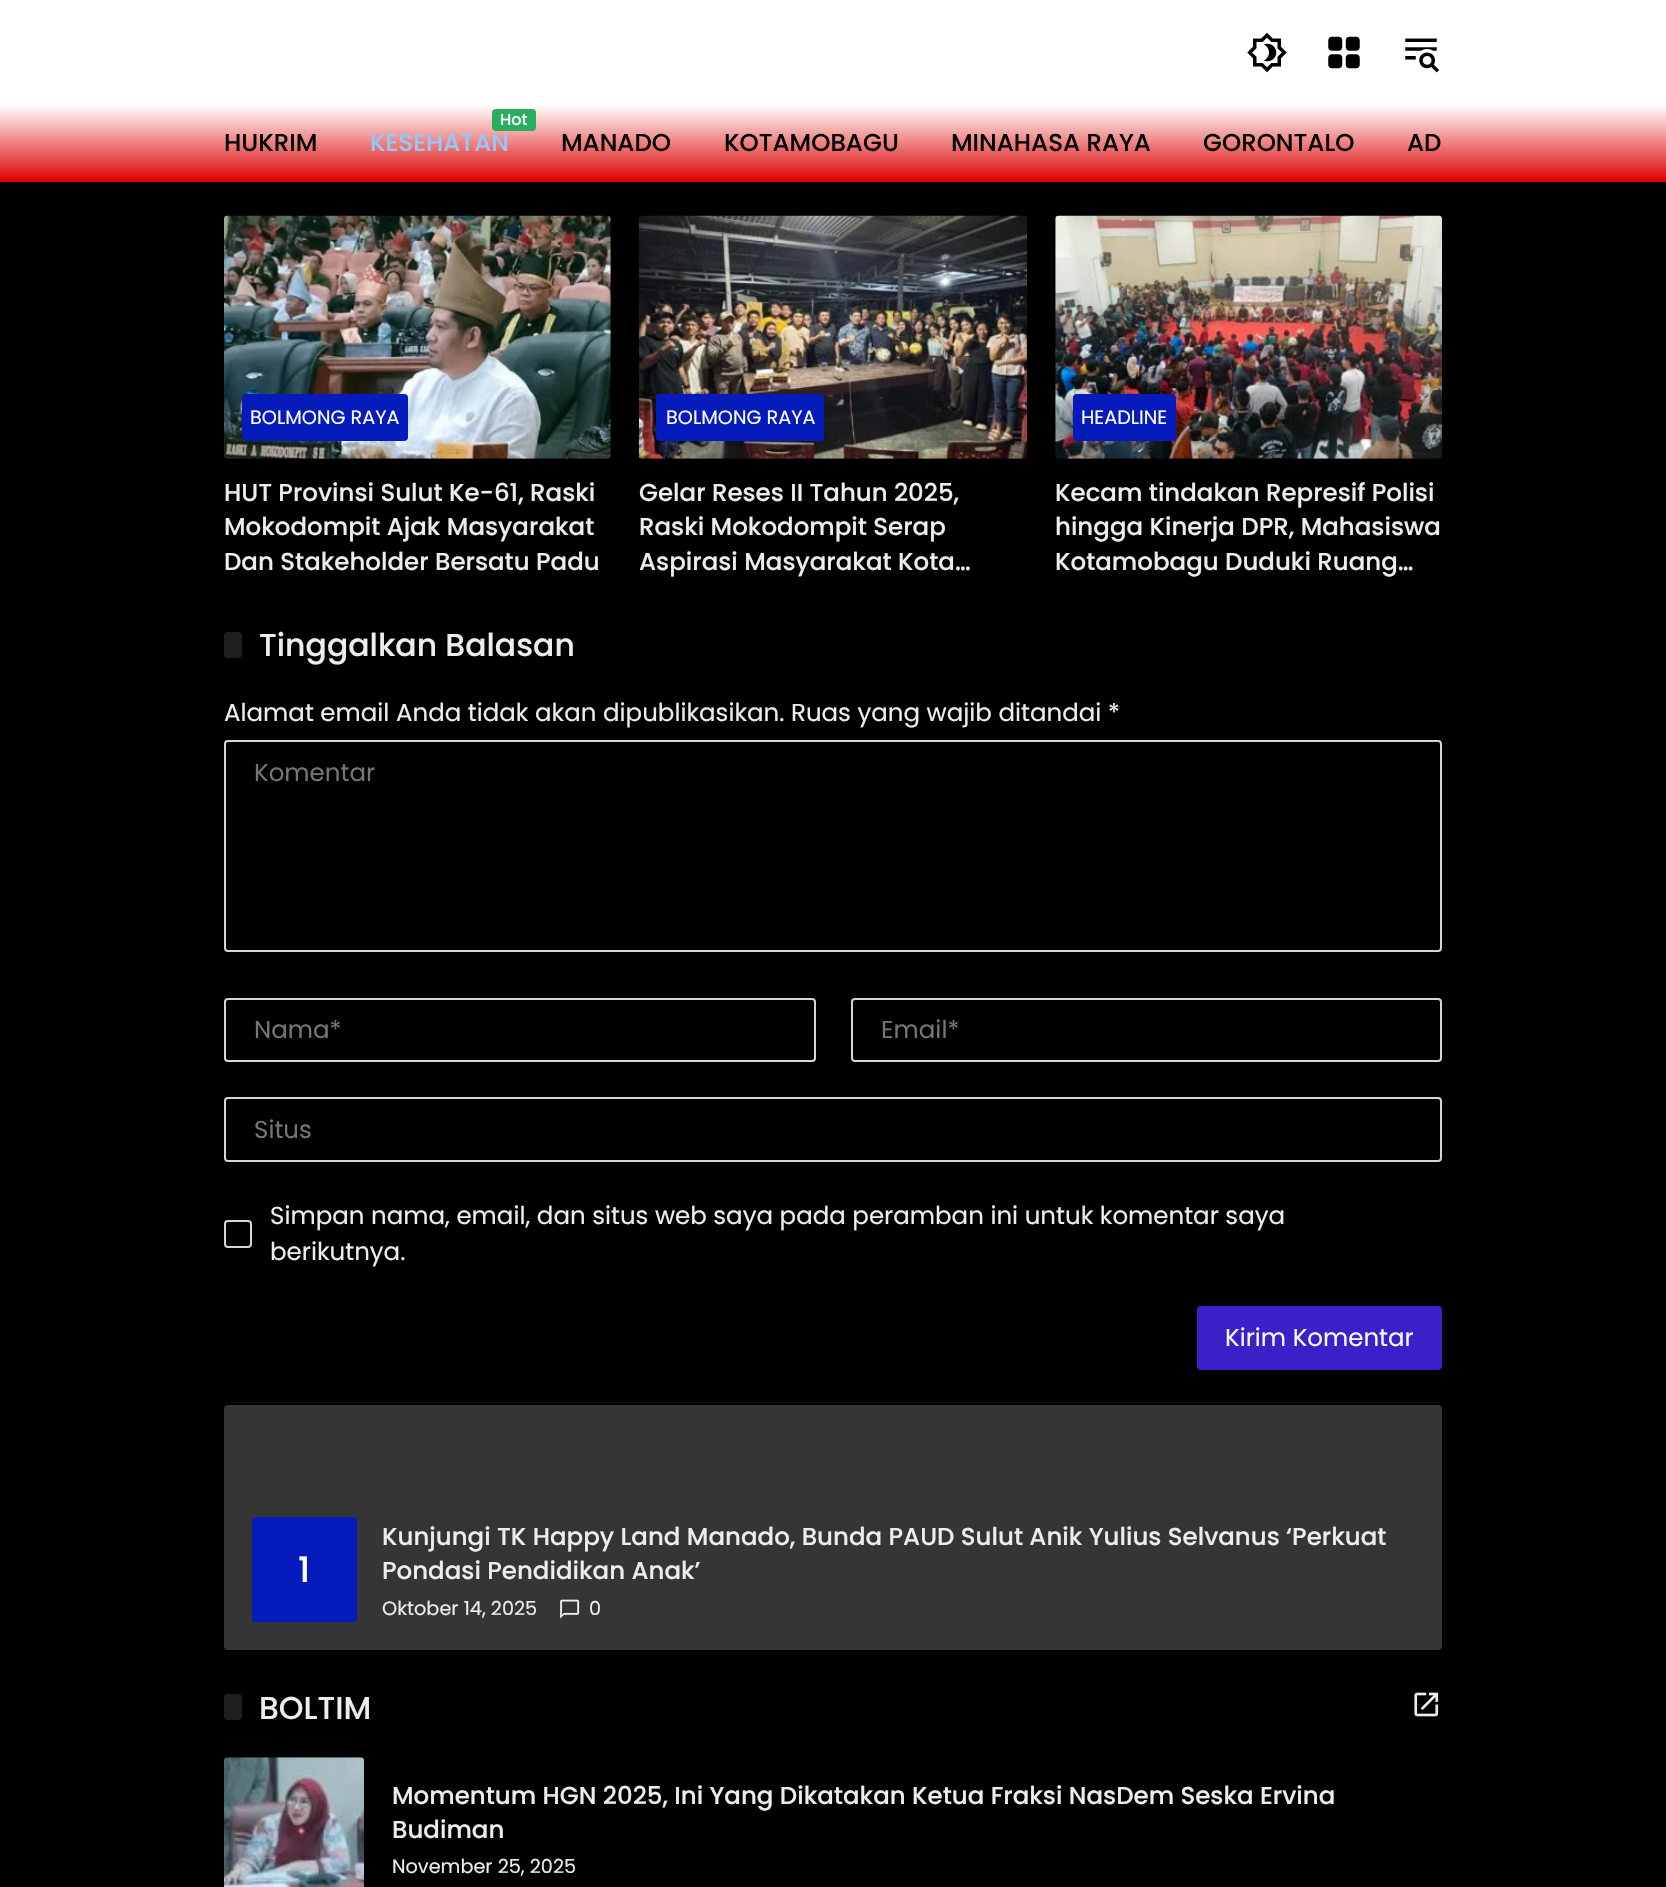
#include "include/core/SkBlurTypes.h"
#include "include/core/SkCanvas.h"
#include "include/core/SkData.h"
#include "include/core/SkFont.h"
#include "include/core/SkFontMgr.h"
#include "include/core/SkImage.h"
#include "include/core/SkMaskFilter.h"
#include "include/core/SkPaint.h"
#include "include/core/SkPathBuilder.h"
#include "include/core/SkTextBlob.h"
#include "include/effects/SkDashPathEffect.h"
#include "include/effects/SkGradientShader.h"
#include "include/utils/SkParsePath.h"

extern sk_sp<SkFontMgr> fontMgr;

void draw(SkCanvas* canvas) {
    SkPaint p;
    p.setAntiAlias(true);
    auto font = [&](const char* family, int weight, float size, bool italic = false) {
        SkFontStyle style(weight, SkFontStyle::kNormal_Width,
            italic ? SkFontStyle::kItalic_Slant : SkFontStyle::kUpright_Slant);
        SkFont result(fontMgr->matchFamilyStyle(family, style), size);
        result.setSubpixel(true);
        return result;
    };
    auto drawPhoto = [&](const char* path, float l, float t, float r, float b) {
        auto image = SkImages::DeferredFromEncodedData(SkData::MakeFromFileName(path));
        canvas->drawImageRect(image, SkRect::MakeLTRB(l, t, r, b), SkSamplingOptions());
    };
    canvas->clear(0xFF000000);
    p.setColor(0xFFFFFFFF);
    canvas->drawRect(SkRect::MakeLTRB(0, 0, 1666, 105), p);
    drawPhoto("media/1.png", 1247, 32, 1287, 73);
    drawPhoto("media/2.png", 1328, 36, 1360, 69);
    drawPhoto("media/3.png", 1405, 38, 1439, 73);
    {
        const SkColor colors[] = {0xFFDD0000, 0xFFFFFFFF};
        const float stops[] = {0, 1};
        const SkPoint ends[] = {{833, 182}, {833, 105}};
        p.setShader(SkGradientShader::MakeLinear(ends, colors, stops, 2, SkTileMode::kClamp));
        p.setAlpha(255);
    }
    canvas->drawRect(SkRect::MakeLTRB(0, 105, 1666, 182), p);
    auto font1 = font("Poppins", 500, 24.5f);
    p.setShader(nullptr);
    p.setColor(0xFF000000);
    canvas->drawString("HUKRIM", 224, 151, font1, p);
    p.setColor(0xFF27AE60);
    canvas->drawRoundRect(SkRect::MakeLTRB(492, 109, 536, 131), 4, 4, p);
    auto font2 = font("Poppins", 500, 16);
    p.setColor(0xFFFFFFFF);
    canvas->drawString("Hot", 500, 125, font2, p);
    p.setColor(0xFF90CAF9);
    canvas->drawString("KESEHATAN", 370, 151, font1, p);
    p.setColor(0xFF000000);
    {
        const struct { const char* s; float x, y; } items[] = {
            {"MANADO", 561, 151},
            {"KOTAMOBAGU", 724, 151},
            {"MINAHASA RAYA", 951, 151},
            {"GORONTALO", 1203, 151},
            {"AD", 1407, 151},
        };
        for (auto [s, x, y] : items) {
            canvas->drawString(s, x, y, font1, p);
        }
    }
    drawPhoto("media/4.png", 224, 215, 611, 459);
    p.setColor(0xFF051BBC);
    canvas->drawRoundRect(SkRect::MakeLTRB(242, 394, 408, 441), 4, 4, p);
    auto font3 = font("Poppins", 400, 19.25f);
    p.setColor(0xFFFFFFFF);
    canvas->drawString("BOLMONG RAYA", 250, 424, font3, p);
    p.setColor(0xFFEDEDED);
    {
        const struct { const char* s; float x, y; } items[] = {
            {"HUT Provinsi Sulut Ke-61, Raski", 224, 501},
            {"Mokodompit Ajak Masyarakat", 224, 535},
            {"Dan Stakeholder Bersatu Padu", 224, 570},
        };
        for (auto [s, x, y] : items) {
            canvas->drawString(s, x, y, font1, p);
        }
    }
    drawPhoto("media/5.png", 638, 215, 1028, 459);
    p.setColor(0xFF051BBC);
    canvas->drawRoundRect(SkRect::MakeLTRB(656, 394, 824, 441), 4, 4, p);
    p.setColor(0xFFFFFFFF);
    canvas->drawString("BOLMONG RAYA", 666, 424, font3, p);
    p.setColor(0xFFEDEDED);
    {
        const struct { const char* s; float x, y; } items[] = {
            {"Gelar Reses II Tahun 2025,", 639, 501},
            {"Raski Mokodompit Serap", 639, 535},
            {"Aspirasi Masyarakat Kota…", 639, 570},
        };
        for (auto [s, x, y] : items) {
            canvas->drawString(s, x, y, font1, p);
        }
    }
    drawPhoto("media/6.png", 1055, 215, 1442, 459);
    p.setColor(0xFF051BBC);
    canvas->drawRoundRect(SkRect::MakeLTRB(1073, 394, 1176, 441), 4, 4, p);
    p.setColor(0xFFFFFFFF);
    canvas->drawString("HEADLINE", 1081, 424, font3, p);
    p.setColor(0xFFEDEDED);
    {
        const struct { const char* s; float x, y; } items[] = {
            {"Kecam tindakan Represif Polisi", 1055, 501},
            {"hingga Kinerja DPR, Mahasiswa", 1055, 535},
            {"Kotamobagu Duduki Ruang…", 1055, 570},
        };
        for (auto [s, x, y] : items) {
            canvas->drawString(s, x, y, font1, p);
        }
    }
    p.setColor(0xFF1E1E1E);
    canvas->drawRoundRect(SkRect::MakeLTRB(224, 632, 242, 658), 4, 4, p);
    auto font4 = font("Poppins", 500, 31.5f);
    p.setColor(0xFFEDEDED);
    canvas->drawString("Tinggalkan Balasan", 259, 656, font4, p);
    auto font5 = font("Poppins", 400, 24.5f);
    canvas->drawString("Alamat email Anda tidak akan dipublikasikan. Ruas yang wajib ditandai *", 224, 721, font5, p);
    p.setStyle(SkPaint::kStroke_Style);
    p.setStrokeWidth(2);
    p.setColor(0xFFD6D6D6);
    canvas->drawRoundRect(SkRect::MakeLTRB(225, 741, 1441, 951), 3, 3, p);
    p.setStyle(SkPaint::kFill_Style);
    p.setColor(0xFF757575);
    canvas->drawString("Komentar", 254, 781, font5, p);
    p.setStyle(SkPaint::kStroke_Style);
    p.setColor(0xFFD6D6D6);
    canvas->drawRoundRect(SkRect::MakeLTRB(225, 999, 815, 1061), 3, 3, p);
    p.setStyle(SkPaint::kFill_Style);
    p.setColor(0xFF757575);
    canvas->drawString("Nama*", 254, 1038, font5, p);
    p.setStyle(SkPaint::kStroke_Style);
    p.setColor(0xFFD6D6D6);
    canvas->drawRoundRect(SkRect::MakeLTRB(852, 999, 1441, 1061), 3, 3, p);
    p.setStyle(SkPaint::kFill_Style);
    p.setColor(0xFF757575);
    canvas->drawString("Email*", 881, 1038, font5, p);
    p.setStyle(SkPaint::kStroke_Style);
    p.setColor(0xFFD6D6D6);
    canvas->drawRoundRect(SkRect::MakeLTRB(225, 1098, 1441, 1161), 3, 3, p);
    p.setStyle(SkPaint::kFill_Style);
    p.setColor(0xFF757575);
    canvas->drawString("Situs", 254, 1138, font5, p);
    p.setStyle(SkPaint::kStroke_Style);
    p.setColor(0xFFD6D6D6);
    canvas->drawRoundRect(SkRect::MakeLTRB(225, 1221, 251, 1247), 3, 3, p);
    p.setStyle(SkPaint::kFill_Style);
    p.setColor(0xFFEDEDED);
    canvas->drawString("Simpan nama, email, dan situs web saya pada peramban ini untuk komentar saya", 270, 1224, font5, p);
    canvas->drawString("berikutnya.", 270, 1260, font5, p);
    p.setColor(0xFF3920C9);
    canvas->drawRoundRect(SkRect::MakeLTRB(1197, 1306, 1442, 1370), 4, 4, p);
    p.setColor(0xFFF7F7F7);
    canvas->drawString("Kirim Komentar", 1225, 1346, font5, p);
    p.setColor(0xFF353535);
    canvas->drawRoundRect(SkRect::MakeLTRB(224, 1405, 1442, 1650), 4, 4, p);
    p.setColor(0xFF051BBC);
    canvas->drawRoundRect(SkRect::MakeLTRB(252, 1517, 357, 1622), 4, 4, p);
    auto font6 = font("Poppins", 500, 35);
    p.setColor(0xFFFFFFFF);
    canvas->drawString("1", 298, 1582, font6, p);
    p.setColor(0xFFEDEDED);
    canvas->drawString("Kunjungi TK Happy Land Manado, Bunda PAUD Sulut Anik Yulius Selvanus ‘Perkuat", 382, 1545, font1, p);
    canvas->drawString("Pondasi Pendidikan Anak’", 382, 1579, font1, p);
    canvas->drawString("Oktober 14, 2025", 382, 1615, font3, p);
    drawPhoto("media/7.png", 560, 1599, 580, 1619);
    canvas->drawString("0", 589, 1615, font3, p);
    p.setColor(0xFF1E1E1E);
    canvas->drawRoundRect(SkRect::MakeLTRB(224, 1694, 242, 1720), 4, 4, p);
    p.setColor(0xFFEDEDED);
    canvas->drawString("BOLTIM", 259, 1719, font4, p);
    drawPhoto("media/8.png", 1414, 1692, 1439, 1717);
    drawPhoto("media/9.png", 224, 1757, 364, 1887);
    canvas->drawString("Momentum HGN 2025, Ini Yang Dikatakan Ketua Fraksi NasDem Seska Ervina", 392, 1804, font1, p);
    canvas->drawString("Budiman", 392, 1838, font1, p);
    canvas->drawString("November 25, 2025", 392, 1873, font3, p);
}
